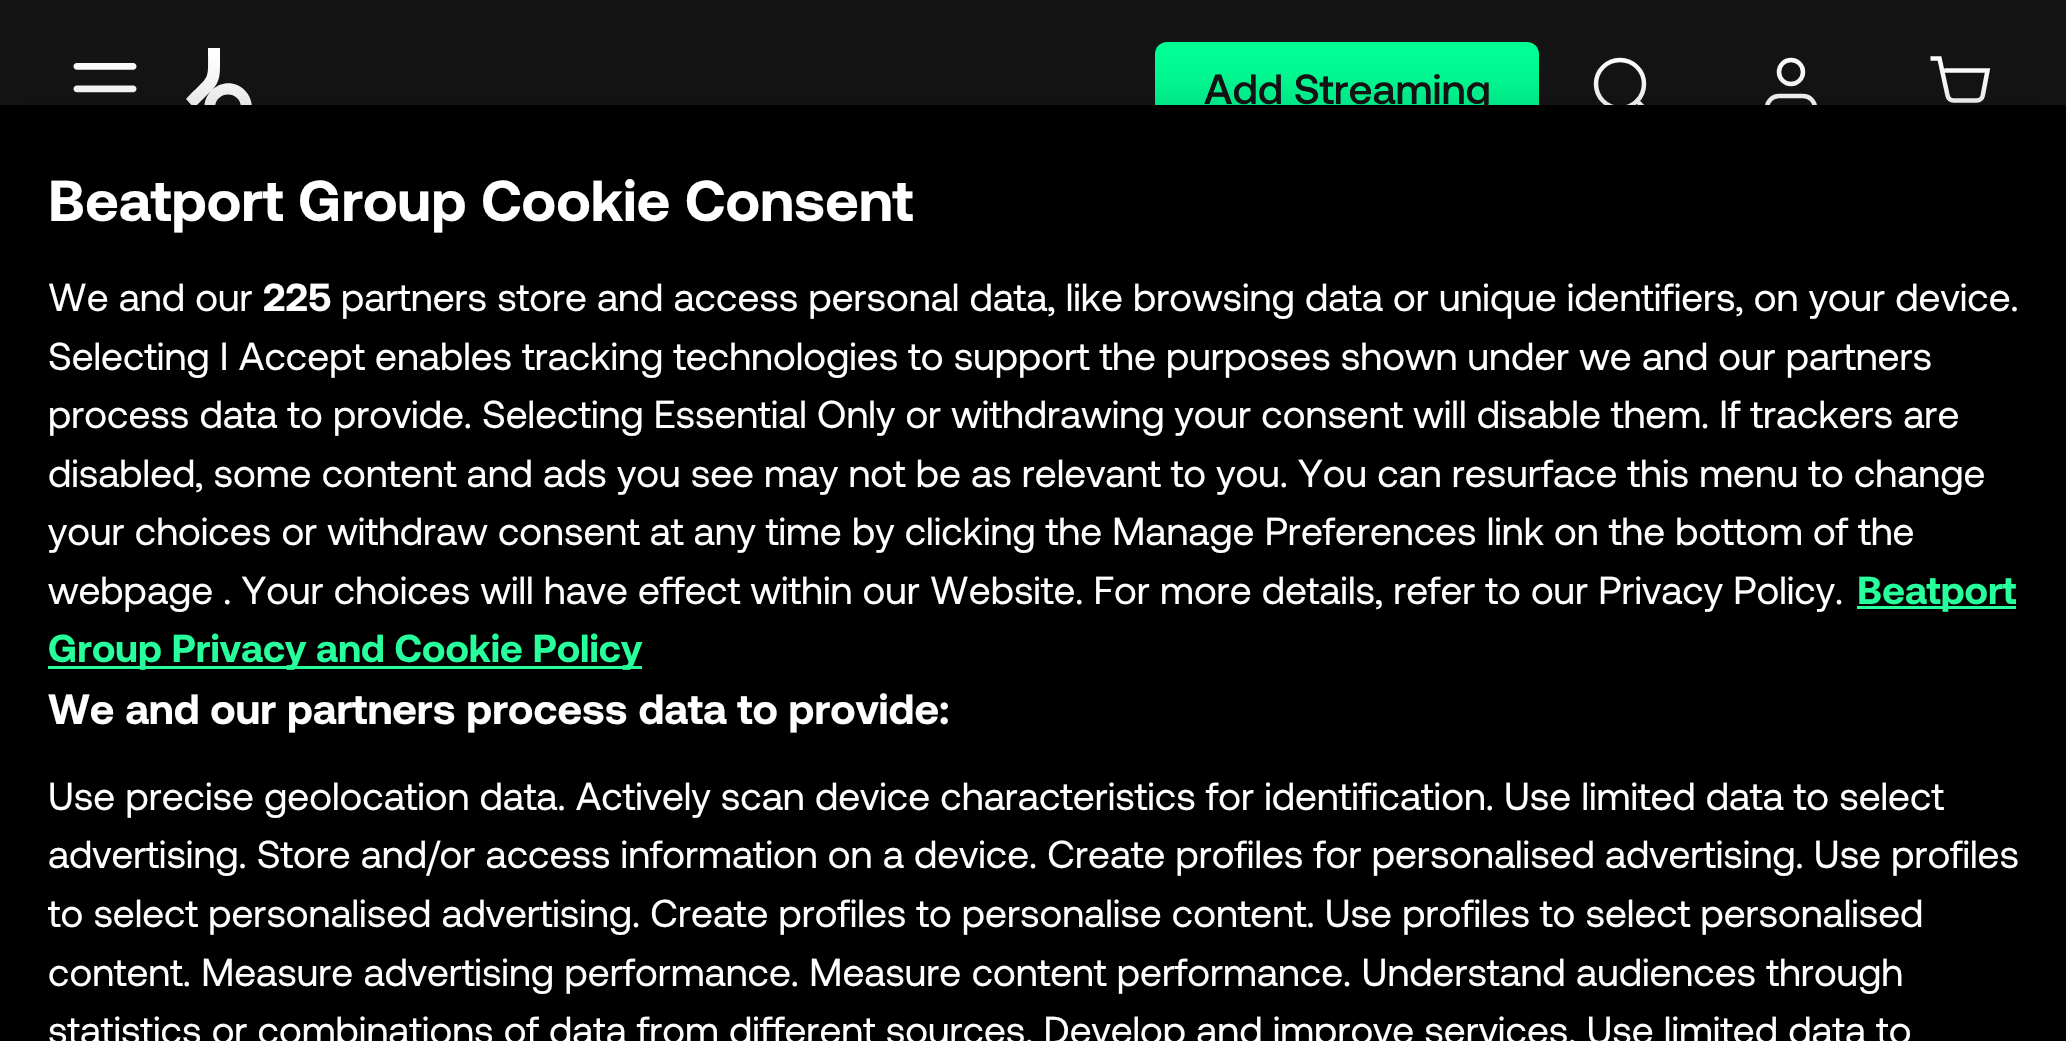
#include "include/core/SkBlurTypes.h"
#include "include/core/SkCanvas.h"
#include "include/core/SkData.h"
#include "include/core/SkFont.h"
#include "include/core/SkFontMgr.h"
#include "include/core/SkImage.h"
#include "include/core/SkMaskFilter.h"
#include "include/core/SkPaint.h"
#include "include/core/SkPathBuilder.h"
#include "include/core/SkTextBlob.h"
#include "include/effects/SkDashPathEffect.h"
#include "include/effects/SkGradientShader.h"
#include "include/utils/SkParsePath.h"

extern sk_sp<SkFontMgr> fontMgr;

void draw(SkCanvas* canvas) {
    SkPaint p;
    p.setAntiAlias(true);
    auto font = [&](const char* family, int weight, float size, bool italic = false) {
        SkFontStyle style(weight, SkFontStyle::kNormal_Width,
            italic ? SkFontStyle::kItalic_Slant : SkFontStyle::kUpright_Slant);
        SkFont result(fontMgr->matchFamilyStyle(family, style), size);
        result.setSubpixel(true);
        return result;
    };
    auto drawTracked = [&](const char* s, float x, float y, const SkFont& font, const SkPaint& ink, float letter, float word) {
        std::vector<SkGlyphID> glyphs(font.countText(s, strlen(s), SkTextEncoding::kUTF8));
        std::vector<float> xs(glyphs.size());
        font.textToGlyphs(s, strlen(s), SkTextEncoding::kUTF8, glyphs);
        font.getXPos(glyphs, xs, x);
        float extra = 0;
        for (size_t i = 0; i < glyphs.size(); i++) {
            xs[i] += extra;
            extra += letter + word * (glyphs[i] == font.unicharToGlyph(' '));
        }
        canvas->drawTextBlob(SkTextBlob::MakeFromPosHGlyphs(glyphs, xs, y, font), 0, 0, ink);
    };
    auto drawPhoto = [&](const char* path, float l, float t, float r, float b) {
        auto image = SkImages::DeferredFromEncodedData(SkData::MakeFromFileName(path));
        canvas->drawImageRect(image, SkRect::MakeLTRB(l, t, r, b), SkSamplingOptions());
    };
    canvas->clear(0xFF141414);
    drawPhoto("media/1.png", 73, 63, 137, 93);
    p.setColor(0xFFFFFFFF);
    canvas->drawPath(SkPathBuilder().moveTo(252, 108).cubicTo(252, 114, 249, 120, 245, 125).cubicTo(223, 147, 190, 114, 211, 91).lineTo(194, 108).lineTo(186, 99).cubicTo(211, 73, 208, 83, 208, 48).lineTo(220, 48).lineTo(220, 63).cubicTo(220, 74, 220, 82, 212, 90).cubicTo(228, 75, 252, 87, 252, 108).close().moveTo(241, 108).cubicTo(241, 90, 215, 90, 215, 108).cubicTo(215, 125, 241, 125, 241, 108).close().detach(), p);
    p.setColor(0xFF01FF95);
    canvas->drawRoundRect(SkRect::MakeLTRB(1155, 42, 1539, 141), 12, 12, p);
    auto font1 = font("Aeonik", 500, 42);
    p.setColor(0xFF141414);
    canvas->drawString("Add Streaming", 1204, 104, font1, p);
    drawPhoto("media/2.png", 1593, 57, 1647, 105);
    drawPhoto("media/3.png", 1765, 57, 1817, 105);
    drawPhoto("media/4.png", 1930, 56, 1991, 103);
    p.setColor(0x33000000);
    p.setMaskFilter(SkMaskFilter::MakeBlur(kNormal_SkBlurStyle, 27));
    canvas->drawRect(SkRect::MakeLTRB(0, 105, 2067, 1041), p);
    p.setMaskFilter(nullptr);
    p.setColor(0xFF000000);
    canvas->drawRect(SkRect::MakeLTRB(0, 105, 2066, 1041), p);
    auto font2 = font("Aeonik", 700, 57.6f);
    p.setColor(0xFFFFFFFF);
    drawTracked("Beatport Group Cookie Consent", 48, 221, font2, p, 0, 0.5f);
    auto font3 = font("Aeonik", 400, 39.02f);
    canvas->drawString("We and our", 48, 311, font3, p);
    auto font4 = font("Aeonik", 700, 39.02f);
    canvas->drawString("225", 263, 311, font4, p);
    {
        const struct { const char* s; float x, y; } items[] = {
            {"partners store and access personal data, like browsing data or unique identifiers, on your device.", 341, 311},
            {"Selecting I Accept enables tracking technologies to support the purposes shown under we and our partners", 48, 370},
            {"process data to provide. Selecting Essential Only or withdrawing your consent will disable them. If trackers are", 48, 428},
            {"disabled, some content and ads you see may not be as relevant to you. You can resurface this menu to change", 48, 487},
            {"your choices or withdraw consent at any time by clicking the Manage Preferences link on the bottom of the", 48, 545},
            {"webpage . Your choices will have effect within our Website. For more details, refer to our Privacy Policy.", 48, 604},
        };
        for (auto [s, x, y] : items) {
            canvas->drawString(s, x, y, font3, p);
        }
    }
    p.setColor(0xFF27FF9C);
    canvas->drawRect(SkRect::MakeLTRB(1857, 606, 2016, 609), p);
    canvas->drawString("Beatport", 1857, 604, font4, p);
    canvas->drawRect(SkRect::MakeLTRB(48, 666, 642, 669), p);
    canvas->drawString("Group Privacy and Cookie Policy", 48, 662, font4, p);
    auto font5 = font("Aeonik", 700, 42.25f);
    p.setColor(0xFFFFFFFF);
    drawTracked("We and our partners process data to provide:", 48, 724, font5, p, 0, 0.25f);
    canvas->drawString("Use precise geolocation data. Actively scan device characteristics for identification. Use limited data to select", 48, 810, font3, p);
    canvas->drawString("advertising. Store and/or access information on a device. Create profiles for personalised advertising. Use profiles", 48, 868, font3, p);
    canvas->save();
    canvas->clipRect(SkRect::MakeLTRB(48, 165, 2019, 1041));
    canvas->drawString("to select personalised advertising. Create profiles to personalise content. Use profiles to select personalised", 48, 927, font3, p);
    canvas->restore();
    drawTracked("content. Measure advertising performance. Measure content performance. Understand audiences through", 48, 986, font3, p, 0, 0.25f);
    canvas->drawString("statistics or combinations of data from different sources. Develop and improve services. Use limited data to", 48, 1044, font3, p);
}
